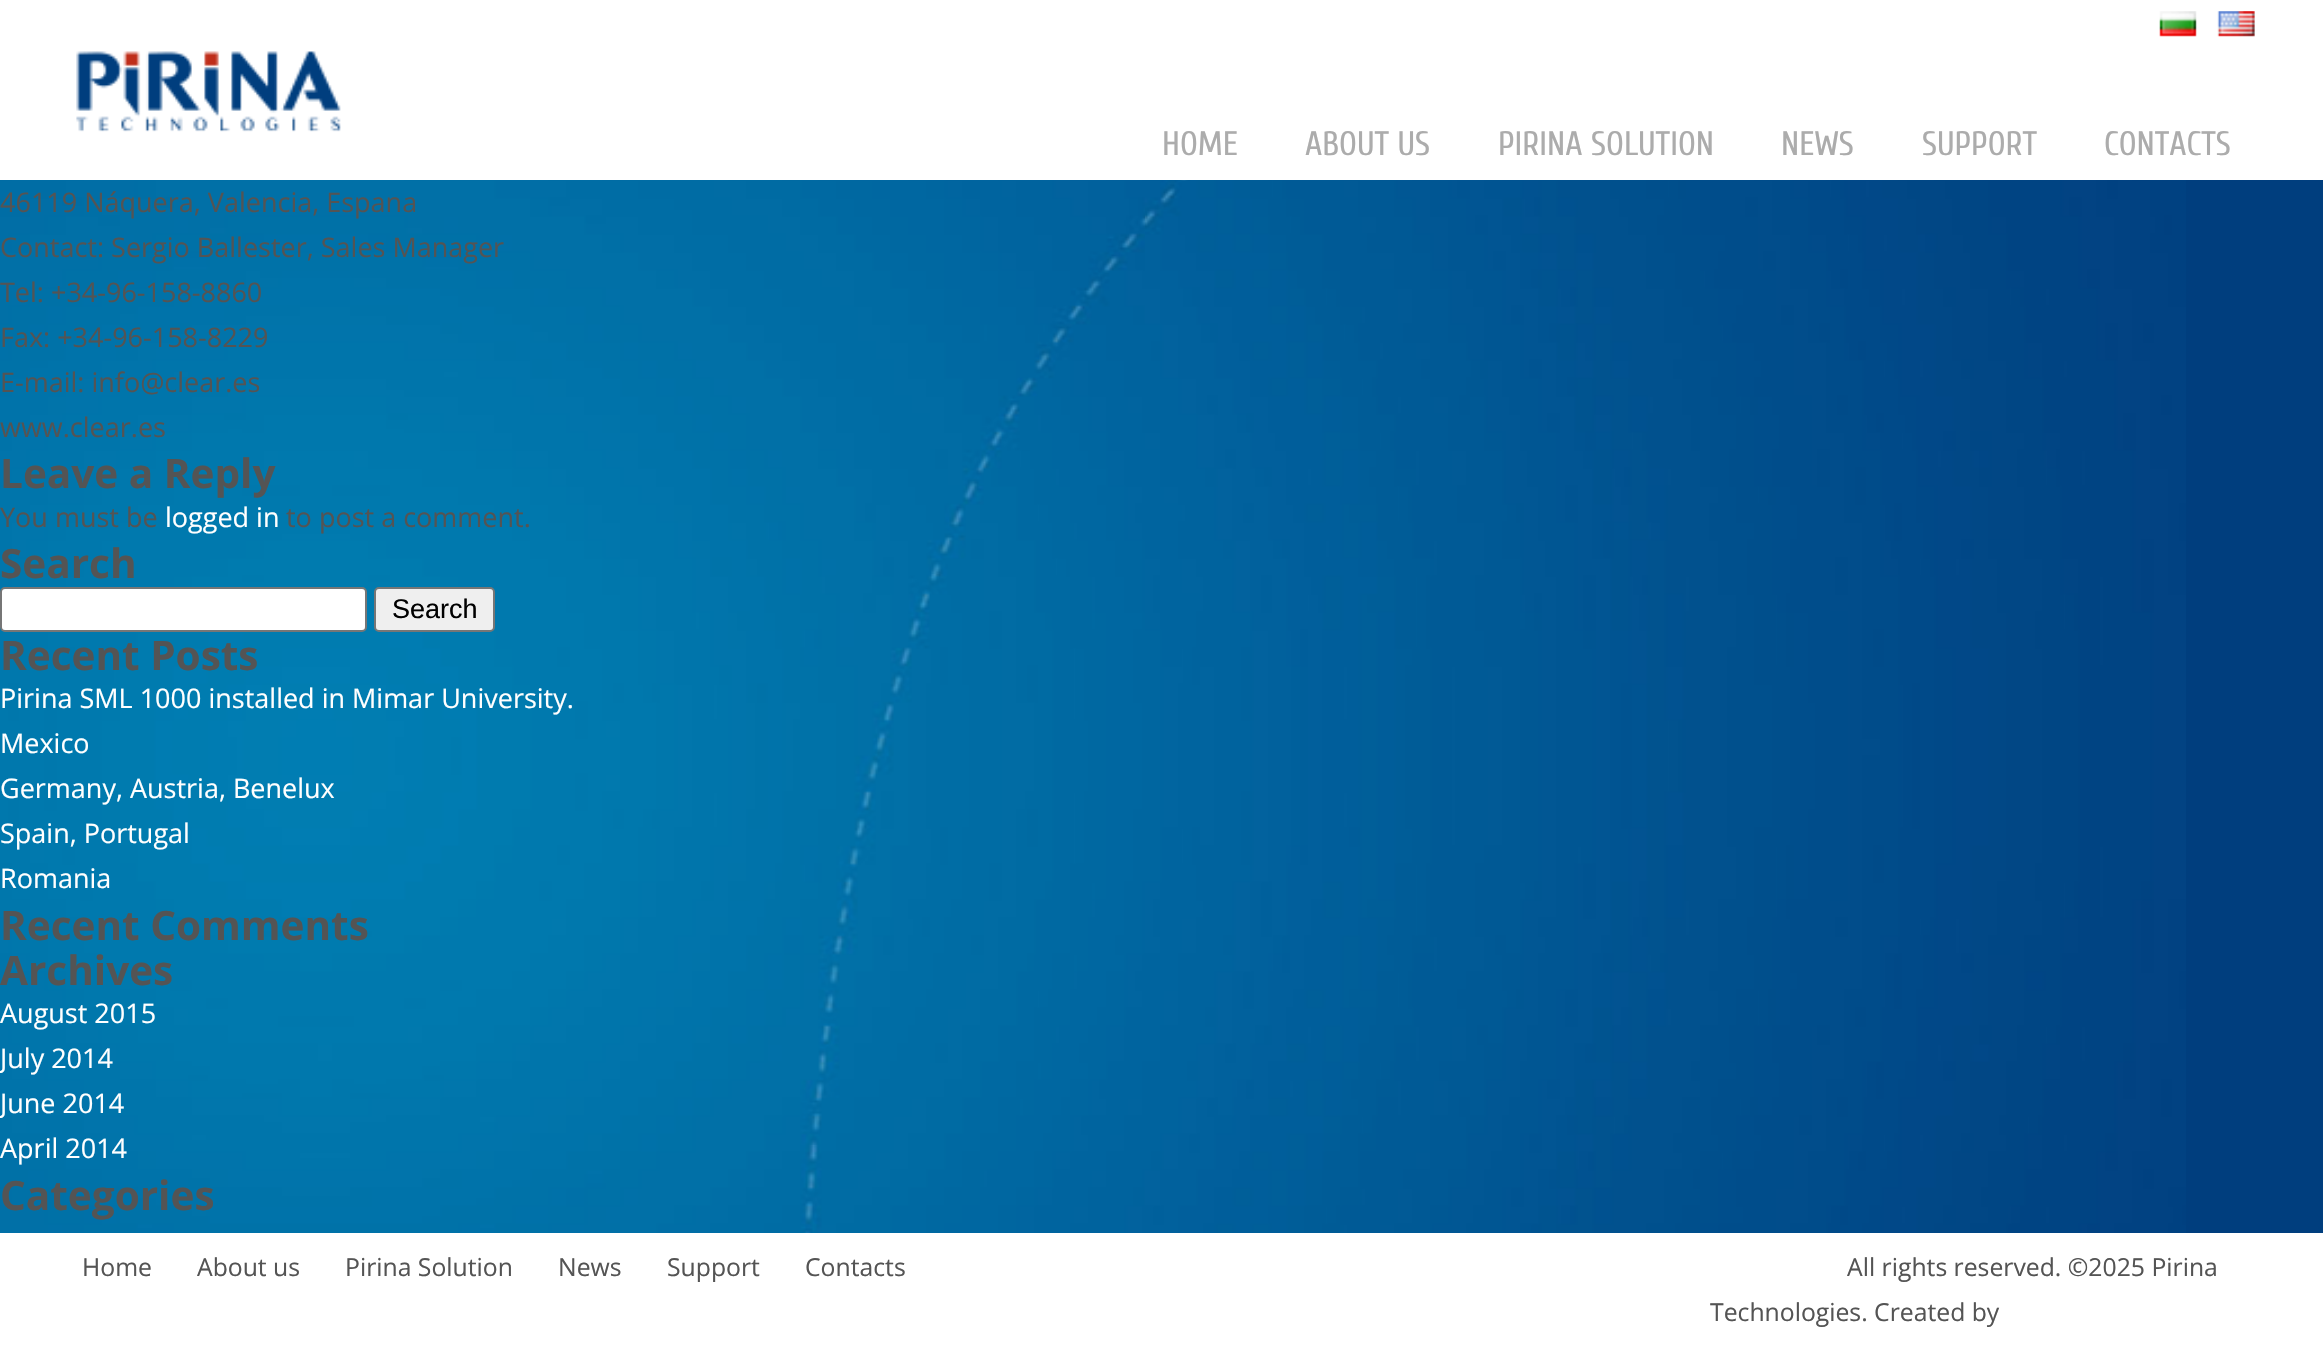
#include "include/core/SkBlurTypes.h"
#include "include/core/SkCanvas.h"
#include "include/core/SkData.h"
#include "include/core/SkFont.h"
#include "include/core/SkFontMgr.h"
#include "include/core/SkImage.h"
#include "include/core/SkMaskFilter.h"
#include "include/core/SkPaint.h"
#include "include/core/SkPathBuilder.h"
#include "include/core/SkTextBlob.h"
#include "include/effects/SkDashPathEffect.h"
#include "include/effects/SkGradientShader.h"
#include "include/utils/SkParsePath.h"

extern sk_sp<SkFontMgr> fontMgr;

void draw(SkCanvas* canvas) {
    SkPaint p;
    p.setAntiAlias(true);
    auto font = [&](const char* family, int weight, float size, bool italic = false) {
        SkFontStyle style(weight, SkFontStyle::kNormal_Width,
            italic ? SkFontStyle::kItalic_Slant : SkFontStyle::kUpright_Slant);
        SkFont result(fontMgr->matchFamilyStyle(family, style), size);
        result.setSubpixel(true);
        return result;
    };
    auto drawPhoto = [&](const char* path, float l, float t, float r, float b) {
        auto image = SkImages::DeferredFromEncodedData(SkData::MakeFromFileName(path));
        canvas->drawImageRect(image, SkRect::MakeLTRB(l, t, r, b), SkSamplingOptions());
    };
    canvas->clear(0xFF003E7E);
    drawPhoto("media/1.png", 0, 180, 2186, 1233);
    p.setColor(0xFFFFFFFF);
    canvas->drawRect(SkRect::MakeLTRB(0, 0, 2323, 180), p);
    drawPhoto("media/2.png", 2159, 11, 2197, 37);
    drawPhoto("media/3.png", 2217, 11, 2255, 37);
    drawPhoto("media/4.png", 76, 51, 341, 132);
    auto font1 = font("Cuprum", 400, 33.75f);
    p.setColor(0xFFACACAC);
    {
        const struct { const char* s; float x, y; } items[] = {
            {"HOME", 1162, 155},
            {"ABOUT US", 1305, 155},
            {"PIRINA SOLUTION", 1498, 155},
            {"NEWS", 1781, 155},
            {"SUPPORT", 1922, 155},
            {"CONTACTS", 2104, 155},
        };
        for (auto [s, x, y] : items) {
            canvas->drawString(s, x, y, font1, p);
        }
    }
    auto font2 = font("Open Sans", 400, 27);
    p.setColor(0xFF545454);
    {
        const struct { const char* s; float x, y; } items[] = {
            {"46119 Náquera, Valencia, Espana", 0, 212},
            {"Contact: Sergio Ballester, Sales Manager", 0, 257},
            {"Tel: +34-96-158-8860", 0, 302},
            {"Fax: +34-96-158-8229", 0, 347},
            {"E-mail: info@clear.es", 0, 392},
            {"www.clear.es", 0, 437},
        };
        for (auto [s, x, y] : items) {
            canvas->drawString(s, x, y, font2, p);
        }
    }
    auto font3 = font("Open Sans", 700, 40.5f);
    canvas->drawString("Leave a Reply", 0, 488, font3, p);
    canvas->drawString("You must be", 0, 527, font2, p);
    p.setColor(0xFFFFFFFF);
    canvas->drawString("logged in", 165, 527, font2, p);
    p.setColor(0xFF545454);
    canvas->drawString("to post a comment.", 286, 527, font2, p);
    canvas->drawString("Search", 0, 578, font3, p);
    p.setColor(0xFFFFFFFF);
    canvas->drawRoundRect(SkRect::MakeLTRB(1, 588, 366, 631), 4, 4, p);
    p.setStyle(SkPaint::kStroke_Style);
    p.setStrokeWidth(2);
    p.setColor(0xFF767676);
    canvas->drawRoundRect(SkRect::MakeLTRB(1, 588, 366, 631), 4, 4, p);
    p.setStyle(SkPaint::kFill_Style);
    p.setColor(0xFFEFEFEF);
    canvas->drawRoundRect(SkRect::MakeLTRB(375, 588, 494, 631), 4, 4, p);
    p.setStyle(SkPaint::kStroke_Style);
    p.setColor(0xFF767676);
    canvas->drawRoundRect(SkRect::MakeLTRB(375, 588, 494, 631), 4, 4, p);
    auto font4 = font("Liberation Sans", 400, 27);
    p.setStyle(SkPaint::kFill_Style);
    p.setColor(0xFF000000);
    canvas->drawString("Search", 392, 618, font4, p);
    p.setColor(0xFF545454);
    canvas->drawString("Recent Posts", 0, 670, font3, p);
    p.setColor(0xFFFFFFFF);
    {
        const struct { const char* s; float x, y; } items[] = {
            {"Pirina SML 1000 installed in Mimar University.", 0, 708},
            {"Mexico", 0, 753},
            {"Germany, Austria, Benelux", 0, 798},
            {"Spain, Portugal", 0, 843},
            {"Romania", 0, 888},
        };
        for (auto [s, x, y] : items) {
            canvas->drawString(s, x, y, font2, p);
        }
    }
    p.setColor(0xFF545454);
    canvas->drawString("Recent Comments", 0, 940, font3, p);
    canvas->drawString("Archives", 0, 985, font3, p);
    p.setColor(0xFFFFFFFF);
    {
        const struct { const char* s; float x, y; } items[] = {
            {"August 2015", 0, 1023},
            {"July 2014", 0, 1068},
            {"June 2014", 0, 1113},
            {"April 2014", 0, 1158},
        };
        for (auto [s, x, y] : items) {
            canvas->drawString(s, x, y, font2, p);
        }
    }
    p.setColor(0xFF545454);
    canvas->drawString("Categories", 0, 1210, font3, p);
    p.setColor(0xFFFFFFFF);
    canvas->drawRect(SkRect::MakeLTRB(0, 1233, 2323, 1345), p);
    auto font5 = font("Open Sans", 400, 24.75f);
    p.setColor(0xFF545454);
    {
        const struct { const char* s; float x, y; } items[] = {
            {"Home", 82, 1276},
            {"About us", 197, 1276},
            {"Pirina Solution", 345, 1276},
            {"News", 558, 1276},
            {"Support", 667, 1276},
            {"Contacts", 805, 1276},
            {"All rights reserved. ©2025 Pirina", 1847, 1276},
            {"Technologies. Created by", 1710, 1321},
        };
        for (auto [s, x, y] : items) {
            canvas->drawString(s, x, y, font5, p);
        }
    }
}
